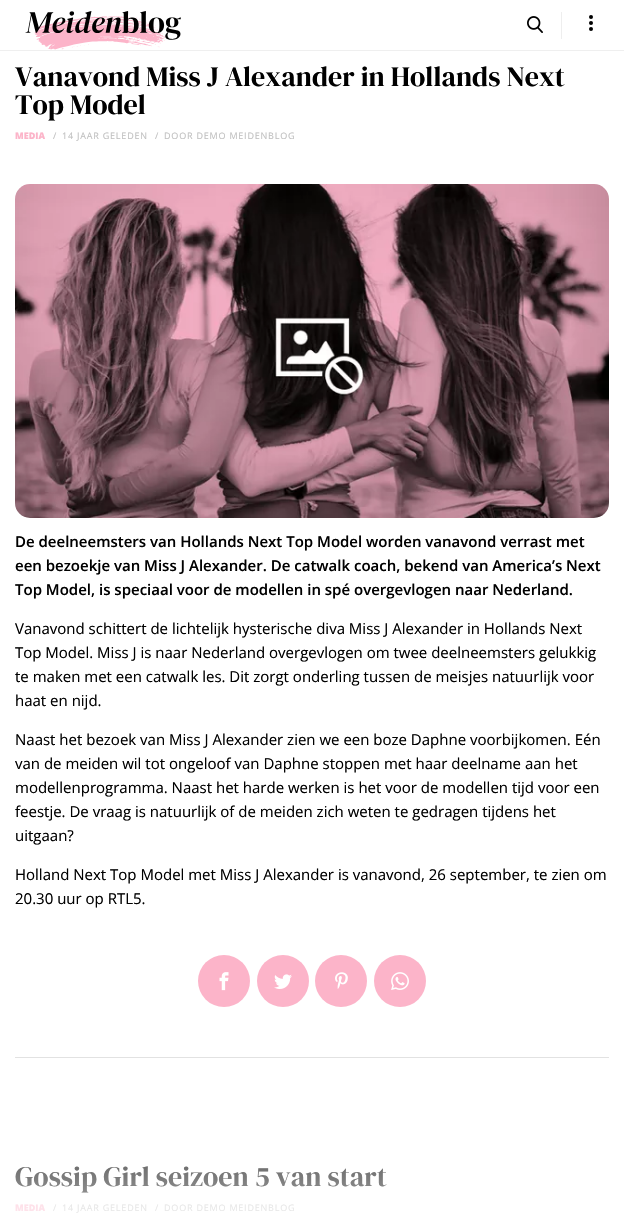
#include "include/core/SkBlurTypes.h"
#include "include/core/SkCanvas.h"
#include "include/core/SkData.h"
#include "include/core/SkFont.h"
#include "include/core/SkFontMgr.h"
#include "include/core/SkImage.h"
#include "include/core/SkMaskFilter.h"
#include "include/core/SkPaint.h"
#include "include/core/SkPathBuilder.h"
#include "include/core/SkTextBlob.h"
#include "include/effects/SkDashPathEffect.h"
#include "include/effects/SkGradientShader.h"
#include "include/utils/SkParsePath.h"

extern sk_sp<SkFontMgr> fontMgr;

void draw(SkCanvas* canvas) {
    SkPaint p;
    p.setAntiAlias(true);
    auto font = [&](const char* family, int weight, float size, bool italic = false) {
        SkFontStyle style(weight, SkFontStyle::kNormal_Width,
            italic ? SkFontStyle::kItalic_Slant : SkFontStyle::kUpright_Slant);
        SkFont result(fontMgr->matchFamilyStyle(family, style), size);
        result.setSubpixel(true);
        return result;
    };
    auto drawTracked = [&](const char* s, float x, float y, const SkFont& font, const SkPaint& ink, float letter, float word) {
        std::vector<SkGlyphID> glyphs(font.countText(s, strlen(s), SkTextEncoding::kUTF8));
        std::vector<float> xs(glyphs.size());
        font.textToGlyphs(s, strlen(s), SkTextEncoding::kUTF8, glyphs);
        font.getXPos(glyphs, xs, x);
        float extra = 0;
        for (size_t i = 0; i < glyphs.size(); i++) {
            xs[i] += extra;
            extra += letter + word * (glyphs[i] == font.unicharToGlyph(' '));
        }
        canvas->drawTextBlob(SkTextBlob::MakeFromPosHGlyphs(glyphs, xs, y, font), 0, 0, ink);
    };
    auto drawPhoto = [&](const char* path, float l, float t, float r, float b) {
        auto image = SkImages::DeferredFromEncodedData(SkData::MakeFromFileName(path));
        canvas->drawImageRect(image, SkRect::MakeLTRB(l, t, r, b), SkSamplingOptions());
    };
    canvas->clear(0xFFFFFFFF);
    p.setColor(0xFF000000);
    canvas->drawCircle(591, 23, 2, p);
    canvas->drawCircle(591, 17, 2, p);
    canvas->drawCircle(591, 29, 2, p);
    p.setColor(0xFFEFEFEF);
    canvas->drawRect(SkRect::MakeLTRB(0, 50, 624, 51), p);
    drawPhoto("media/1.png", 25, 11, 181, 50);
    drawPhoto("media/2.png", 527, 16, 543, 33);
    p.setColor(0xFFEEEEEE);
    canvas->drawRect(SkRect::MakeLTRB(561, 12, 562, 39), p);
    auto font1 = font("DM Serif Display", 400, 28);
    p.setColor(0xFF000000);
    canvas->drawString("Vanavond Miss J Alexander in Hollands Next", 15, 86, font1, p);
    canvas->drawString("Top Model", 15, 114, font1, p);
    auto font2 = font("Open Sans", 800, 9);
    p.setColor(0xFFFCB4C9);
    canvas->drawString("MEDIA", 15, 139, font2, p);
    auto font3 = font("Open Sans", 400, 9);
    p.setColor(0xFFC0C0C0);
    {
        const struct { const char* s; float x, y; } items[] = {
            {"/", 53, 139},
            {"14 JAAR GELEDEN", 62, 139},
            {"/", 155, 139},
            {"DOOR DEMO MEIDENBLOG", 164, 139},
        };
        for (auto [s, x, y] : items) {
            drawTracked(s, x, y, font3, p, 0.8f, 0);
        }
    }
    drawPhoto("media/3.png", 15, 184, 609, 518);
    auto font4 = font("Open Sans", 600, 15);
    p.setColor(0xFF000000);
    {
        const struct { const char* s; float x, y; } items[] = {
            {"De deelneemsters van Hollands Next Top Model worden vanavond verrast met", 15, 547},
            {"een bezoekje van Miss J Alexander. De catwalk coach, bekend van America’s Next", 15, 571},
            {"Top Model, is speciaal voor de modellen in spé overgevlogen naar Nederland.", 15, 595},
        };
        for (auto [s, x, y] : items) {
            canvas->drawString(s, x, y, font4, p);
        }
    }
    auto font5 = font("Open Sans", 400, 15);
    {
        const struct { const char* s; float x, y; } items[] = {
            {"Vanavond schittert de lichtelijk hysterische diva Miss J Alexander in Hollands Next", 15, 634},
            {"Top Model. Miss J is naar Nederland overgevlogen om twee deelneemsters gelukkig", 15, 658},
            {"te maken met een catwalk les. Dit zorgt onderling tussen de meisjes natuurlijk voor", 15, 682},
            {"haat en nijd.", 15, 706},
            {"Naast het bezoek van Miss J Alexander zien we een boze Daphne voorbijkomen. Eén", 15, 745},
            {"van de meiden wil tot ongeloof van Daphne stoppen met haar deelname aan het", 15, 769},
            {"modellenprogramma. Naast het harde werken is het voor de modellen tijd voor een", 15, 793},
            {"feestje. De vraag is natuurlijk of de meiden zich weten te gedragen tijdens het", 15, 817},
            {"uitgaan?", 15, 841},
            {"Holland Next Top Model met Miss J Alexander is vanavond, 26 september, te zien om", 15, 880},
            {"20.30 uur op RTL5.", 15, 904},
        };
        for (auto [s, x, y] : items) {
            canvas->drawString(s, x, y, font5, p);
        }
    }
    p.setColor(0xFFE2E2E2);
    canvas->drawRect(SkRect::MakeLTRB(15, 1057, 609, 1058), p);
    p.setColor(0xFFFCB4C9);
    canvas->drawCircle(224, 981, 26, p);
    drawPhoto("media/4.png", 219, 972, 229, 991);
    canvas->drawCircle(283, 981, 26, p);
    drawPhoto("media/5.png", 274, 974, 292, 989);
    canvas->drawCircle(341, 981, 26, p);
    drawPhoto("media/6.png", 335, 972, 348, 989);
    canvas->drawCircle(400, 981, 26, p);
    drawPhoto("media/7.png", 391, 972, 409, 990);
    p.setColor(0xFF000000);
    canvas->drawString("Gossip Girl seizoen 5 van start", 15, 1186, font1, p);
    p.setColor(0xFFFCB4C9);
    canvas->drawString("MEDIA", 15, 1211, font2, p);
    p.setColor(0xFFC0C0C0);
    {
        const struct { const char* s; float x, y; } items[] = {
            {"/", 53, 1211},
            {"14 JAAR GELEDEN", 62, 1211},
            {"/", 155, 1211},
            {"DOOR DEMO MEIDENBLOG", 164, 1211},
        };
        for (auto [s, x, y] : items) {
            drawTracked(s, x, y, font3, p, 0.8f, 0);
        }
    }
    {
        const SkColor colors[] = {0xFFFFFFFF, 0x00FFFFFF};
        const float stops[] = {0.17f, 1};
        const SkPoint ends[] = {{312, 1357}, {312, 1057}};
        p.setShader(SkGradientShader::MakeLinear(ends, colors, stops, 2, SkTileMode::kClamp));
        p.setAlpha(255);
    }
    canvas->drawRect(SkRect::MakeLTRB(15, 1166, 387, 1213), p);
}
